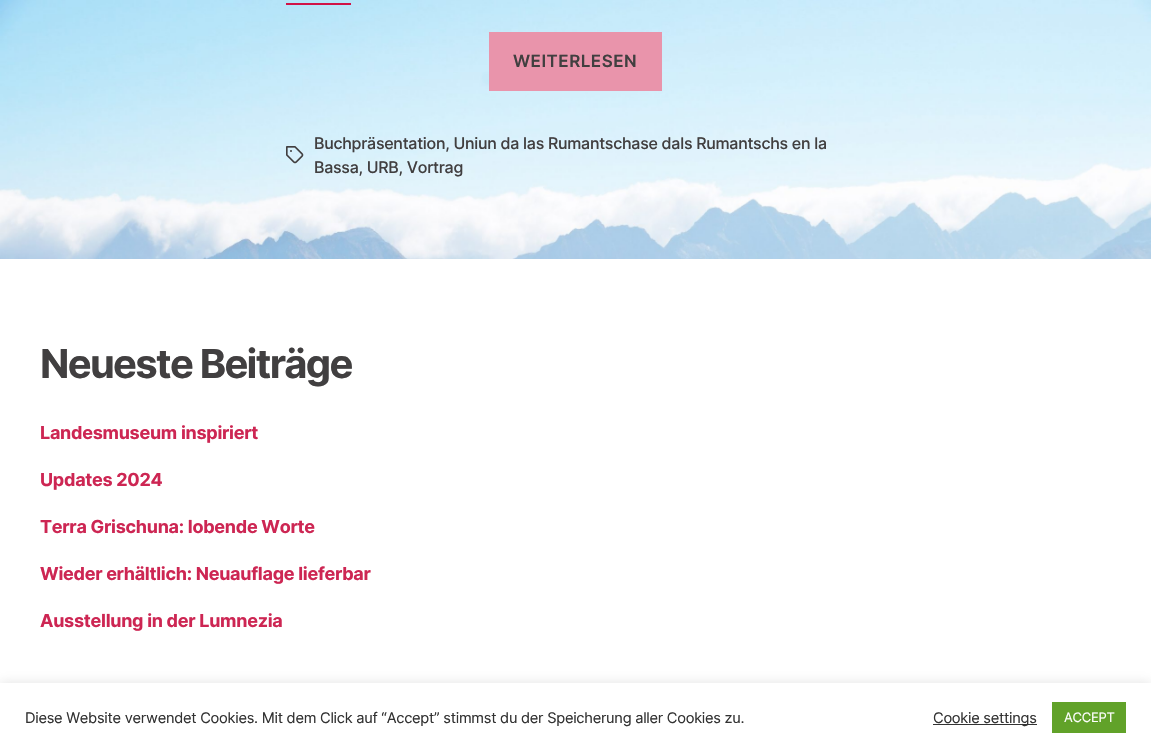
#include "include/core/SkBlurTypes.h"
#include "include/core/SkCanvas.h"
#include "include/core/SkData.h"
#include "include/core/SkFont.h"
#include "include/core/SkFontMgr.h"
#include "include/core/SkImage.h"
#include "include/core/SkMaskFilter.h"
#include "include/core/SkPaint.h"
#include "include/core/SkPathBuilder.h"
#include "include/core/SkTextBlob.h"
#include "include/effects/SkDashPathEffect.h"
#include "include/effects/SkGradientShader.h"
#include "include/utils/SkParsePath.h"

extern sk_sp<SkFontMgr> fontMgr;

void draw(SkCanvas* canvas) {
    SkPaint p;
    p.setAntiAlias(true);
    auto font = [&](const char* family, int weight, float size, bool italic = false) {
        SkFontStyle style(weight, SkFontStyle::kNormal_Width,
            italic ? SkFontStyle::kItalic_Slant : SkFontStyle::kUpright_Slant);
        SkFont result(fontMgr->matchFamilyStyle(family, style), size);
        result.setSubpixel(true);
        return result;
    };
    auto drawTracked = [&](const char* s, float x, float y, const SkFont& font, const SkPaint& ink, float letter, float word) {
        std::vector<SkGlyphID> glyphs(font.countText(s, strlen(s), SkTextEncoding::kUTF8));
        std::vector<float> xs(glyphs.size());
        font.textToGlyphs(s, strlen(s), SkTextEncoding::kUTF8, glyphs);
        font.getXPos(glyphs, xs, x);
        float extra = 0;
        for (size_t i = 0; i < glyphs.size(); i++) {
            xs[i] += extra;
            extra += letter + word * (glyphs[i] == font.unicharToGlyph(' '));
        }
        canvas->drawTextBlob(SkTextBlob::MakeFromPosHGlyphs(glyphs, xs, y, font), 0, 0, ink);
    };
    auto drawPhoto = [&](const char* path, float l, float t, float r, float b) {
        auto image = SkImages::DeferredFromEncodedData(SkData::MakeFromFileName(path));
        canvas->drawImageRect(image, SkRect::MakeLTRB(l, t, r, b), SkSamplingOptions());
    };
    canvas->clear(0xFFFFFFFF);
    drawPhoto("media/1.png", 0, 0, 1151, 259);
    p.setColor(0xFFD11246);
    canvas->drawRect(SkRect::MakeLTRB(286, 3, 351, 5), p);
    p.setColor(0xFFE994AB);
    canvas->drawRect(SkRect::MakeLTRB(489, 32, 662, 91), p);
    auto font1 = font("Inter", 600, 17);
    p.setColor(0xFF413F40);
    drawTracked("WEITERLESEN", 513, 67, font1, p, 0.5f, 0);
    drawPhoto("media/2.png", 286, 146, 304, 164);
    auto font2 = font("Inter", 500, 16);
    drawTracked("Buchpräsentation, Uniun da las Rumantschase dals Rumantschs en la", 314, 149, font2, p, -0.27f, 0);
    drawTracked("Bassa, URB, Vortrag", 314, 173, font2, p, -0.27f, 0);
    auto font3 = font("Inter", 700, 40);
    drawTracked("Neueste Beiträge", 40, 378, font3, p, -1.7f, 0);
    auto font4 = font("Inter", 700, 18);
    p.setColor(0xFFCD2653);
    {
        const struct { const char* s; float x, y; } items[] = {
            {"Landesmuseum inspiriert", 40, 439},
            {"Updates 2024", 40, 486},
            {"Terra Grischuna: lobende Worte", 40, 533},
            {"Wieder erhältlich: Neuauflage lieferbar", 40, 580},
            {"Ausstellung in der Lumnezia", 40, 627},
        };
        for (auto [s, x, y] : items) {
            drawTracked(s, x, y, font4, p, -0.27f, 0);
        }
    }
    p.setColor(0x4DACABAB);
    p.setMaskFilter(SkMaskFilter::MakeBlur(kNormal_SkBlurStyle, 5));
    canvas->drawRect(SkRect::MakeLTRB(0, 682, 1151, 751), p);
    p.setMaskFilter(nullptr);
    p.setColor(0xFFFFFFFF);
    canvas->drawRect(SkRect::MakeLTRB(0, 683, 1151, 752), p);
    auto font5 = font("Inter", 400, 14.65f);
    p.setColor(0xFF333333);
    drawTracked("Diese Website verwendet Cookies. Mit dem Click auf “Accept” stimmst du der Speicherung aller Cookies zu.", 25, 723, font5, p, -0.27f, 0);
    canvas->drawRect(SkRect::MakeLTRB(933, 724, 1037, 725), p);
    drawTracked("Cookie settings", 933, 723, font5, p, -0.27f, 0);
    p.setColor(0xFF61A229);
    canvas->drawRect(SkRect::MakeLTRB(1052, 702, 1126, 733), p);
    auto font6 = font("Inter", 400, 13);
    p.setColor(0xFFFFFFFF);
    drawTracked("ACCEPT", 1064, 722, font6, p, -0.27f, 0);
}
